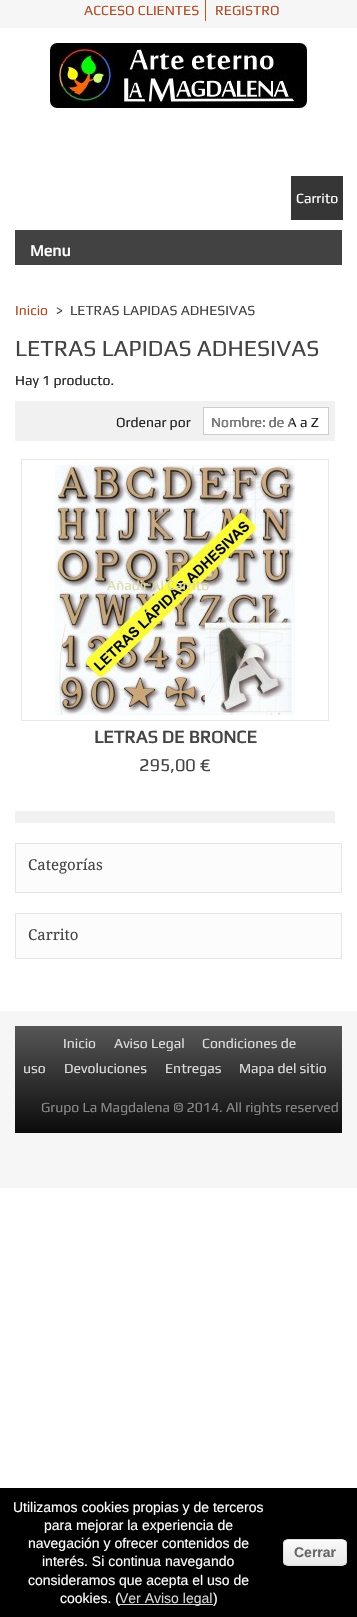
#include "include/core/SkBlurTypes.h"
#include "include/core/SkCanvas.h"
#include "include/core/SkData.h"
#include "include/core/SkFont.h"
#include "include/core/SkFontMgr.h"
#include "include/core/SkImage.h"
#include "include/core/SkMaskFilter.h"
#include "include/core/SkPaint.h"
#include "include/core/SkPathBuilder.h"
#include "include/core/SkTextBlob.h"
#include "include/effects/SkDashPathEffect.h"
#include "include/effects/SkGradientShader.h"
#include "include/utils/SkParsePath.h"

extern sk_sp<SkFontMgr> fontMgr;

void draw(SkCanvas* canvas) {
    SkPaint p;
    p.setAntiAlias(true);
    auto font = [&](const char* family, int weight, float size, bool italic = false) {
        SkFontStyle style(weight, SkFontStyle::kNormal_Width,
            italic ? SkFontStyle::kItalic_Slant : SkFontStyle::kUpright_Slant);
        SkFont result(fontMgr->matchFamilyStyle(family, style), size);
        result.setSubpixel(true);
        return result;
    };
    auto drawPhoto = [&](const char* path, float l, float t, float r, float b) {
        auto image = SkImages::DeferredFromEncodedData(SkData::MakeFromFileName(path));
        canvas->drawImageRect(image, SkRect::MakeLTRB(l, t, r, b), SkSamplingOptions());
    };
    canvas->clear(0xFFFFFFFF);
    p.setColor(0xFFF6F6F6);
    canvas->drawRect(SkRect::MakeLTRB(0, 0, 357, 28), p);
    p.setColor(0xFFCB5211);
    canvas->drawRect(SkRect::MakeLTRB(205, 0, 206, 21), p);
    auto font1 = font("Play", 400, 14);
    p.setColor(0xFFAB4E28);
    canvas->drawString("ACCESO CLIENTES", 84, 15, font1, p);
    canvas->drawString("REGISTRO", 215, 15, font1, p);
    p.setColor(0xFF363636);
    canvas->drawRect(SkRect::MakeLTRB(291, 176, 343, 220), p);
    p.setColor(0xFFFFFFFF);
    canvas->drawString("Carrito", 296, 203, font1, p);
    drawPhoto("media/1.png", 50, 43, 307, 108);
    p.setColor(0xFF424242);
    canvas->drawRect(SkRect::MakeLTRB(15, 230, 342, 265), p);
    auto font2 = font("Play", 700, 16);
    p.setColor(0xFFFFFFFF);
    canvas->drawString("Menu", 30, 256, font2, p);
    p.setColor(0xFFAB4E28);
    canvas->drawString("Inicio", 15, 315, font1, p);
    p.setColor(0xFF444444);
    canvas->drawString(">", 56, 315, font1, p);
    canvas->drawString("LETRAS LAPIDAS ADHESIVAS", 70, 315, font1, p);
    auto font3 = font("Play", 400, 23);
    canvas->drawString("LETRAS LAPIDAS ADHESIVAS", 15, 356, font3, p);
    p.setColor(0xFF222222);
    canvas->drawString("Hay 1 producto.", 15, 385, font1, p);
    p.setColor(0xFFF1F1F1);
    canvas->drawRect(SkRect::MakeLTRB(15, 401, 335, 441), p);
    p.setColor(0xFF222222);
    canvas->drawString("Ordenar por", 116, 427, font1, p);
    p.setColor(0xFFFFFFFF);
    canvas->drawRect(SkRect::MakeLTRB(203.5f, 407.5f, 328.5f, 434.5f), p);
    p.setStyle(SkPaint::kStroke_Style);
    p.setStrokeWidth(1);
    p.setColor(0xFFCDCDCD);
    canvas->drawRect(SkRect::MakeLTRB(203.5f, 407.5f, 328.5f, 434.5f), p);
    p.setStyle(SkPaint::kFill_Style);
    p.setColor(0xFF222222);
    canvas->drawString("Nombre: de A a Z", 211, 427, font1, p);
    canvas->save();
    canvas->clipRect(SkRect::MakeLTRB(211, 413, 292, 431));
    p.setColor(0xFF828282);
    canvas->drawString("Nombre: de A", 211, 427, font1, p);
    canvas->restore();
    p.setStyle(SkPaint::kStroke_Style);
    p.setColor(0xFFECE6E6);
    canvas->drawRect(SkRect::MakeLTRB(21.5f, 459.5f, 328.5f, 720.5f), p);
    drawPhoto("media/2.png", 55, 460, 295, 716);
    p.setStyle(SkPaint::kFill_Style);
    p.setColor(0xFFDBDBAB);
    canvas->drawString("Añadir Al Carrito", 107, 590, font1, p);
    auto font4 = font("Play", 700, 18);
    p.setColor(0xFF444444);
    canvas->drawString("LETRAS DE BRONCE", 94, 743, font4, p);
    auto font5 = font("Play", 400, 18);
    canvas->drawString("295,00 €", 139, 771, font5, p);
    p.setColor(0xFFF1F1F1);
    canvas->drawRect(SkRect::MakeLTRB(15, 811, 335, 823), p);
    p.setColor(0xFFFCFCFC);
    canvas->drawRect(SkRect::MakeLTRB(15.5f, 843.5f, 341.5f, 892.5f), p);
    p.setStyle(SkPaint::kStroke_Style);
    p.setColor(0xFFE5E5E5);
    canvas->drawRect(SkRect::MakeLTRB(15.5f, 843.5f, 341.5f, 892.5f), p);
    auto font6 = font("Droid Serif", 400, 15);
    p.setStyle(SkPaint::kFill_Style);
    p.setColor(0xFF444444);
    canvas->drawString("Categorías", 28, 870, font6, p);
    p.setColor(0xFFFCFCFC);
    canvas->drawRect(SkRect::MakeLTRB(15.5f, 913.5f, 341.5f, 958.5f), p);
    p.setStyle(SkPaint::kStroke_Style);
    p.setColor(0xFFE5E5E5);
    canvas->drawRect(SkRect::MakeLTRB(15.5f, 913.5f, 341.5f, 958.5f), p);
    p.setStyle(SkPaint::kFill_Style);
    p.setColor(0xFF444444);
    canvas->drawString("Carrito", 28, 940, font6, p);
    p.setColor(0xFFF6F6F6);
    canvas->drawRect(SkRect::MakeLTRB(0, 1011, 357, 1188), p);
    {
        const SkColor colors[] = {0xFF565656, 0xFF0B0B0B};
        const float stops[] = {0, 1};
        const SkPoint ends[] = {{179, 1026}, {179, 1133}};
        p.setShader(SkGradientShader::MakeLinear(ends, colors, stops, 2, SkTileMode::kClamp));
        p.setAlpha(255);
    }
    canvas->drawRect(SkRect::MakeLTRB(15, 1026, 342, 1133), p);
    p.setShader(nullptr);
    p.setColor(0xFFDDDDDD);
    {
        const struct { const char* s; float x, y; } items[] = {
            {"Inicio", 63, 1048},
            {"Aviso Legal", 114, 1048},
            {"Condiciones de", 202, 1048},
            {"uso", 23, 1073},
            {"Devoluciones", 64, 1073},
            {"Entregas", 165, 1073},
            {"Mapa del sitio", 239, 1073},
        };
        for (auto [s, x, y] : items) {
            canvas->drawString(s, x, y, font1, p);
        }
    }
    p.setColor(0xFF888888);
    canvas->drawString("Grupo La Magdalena © 2014. All rights reserved", 41, 1112, font1, p);
    p.setColor(0xFF000000);
    canvas->drawRect(SkRect::MakeLTRB(0, 1488, 357, 1617), p);
    auto font7 = font("Liberation Sans", 400, 14);
    p.setColor(0xFFFFFFFF);
    {
        const struct { const char* s; float x, y; } items[] = {
            {"Utilizamos cookies propias y de terceros", 13, 1512},
            {"para mejorar la experiencia de", 44, 1530},
            {"navegación y ofrecer contenidos de", 28, 1548},
            {"interés. Si continua navegando", 42, 1566},
            {"consideramos que acepta el uso de", 28, 1585},
            {"cookies. (", 60, 1603},
        };
        for (auto [s, x, y] : items) {
            canvas->drawString(s, x, y, font7, p);
        }
    }
    p.setColor(0xFFD5D5D5);
    canvas->drawRect(SkRect::MakeLTRB(119, 1604, 213, 1605), p);
    canvas->drawString("Ver Aviso legal", 119, 1603, font7, p);
    p.setColor(0xFFFFFFFF);
    canvas->drawString(")", 213, 1603, font7, p);
    canvas->save();
    canvas->clipPath(SkPathBuilder().moveTo(288, 1539).lineTo(342, 1539).cubicTo(345, 1539, 347, 1541, 347, 1544).lineTo(347, 1561).cubicTo(347, 1564, 345, 1566, 342, 1566).lineTo(288, 1566).cubicTo(285, 1566, 283, 1564, 283, 1561).lineTo(283, 1544).cubicTo(283, 1541, 285, 1539, 288, 1539).close().detach(), true);
    {
        const SkColor colors[] = {0xFFF9F9F9, 0xFFE9E9E9};
        const float stops[] = {0.05f, 1};
        const SkPoint ends[] = {{284, 1540}, {284, 1565}};
        p.setShader(SkGradientShader::MakeLinear(ends, colors, stops, 2, SkTileMode::kClamp));
        p.setAlpha(255);
    }
    canvas->drawRect(SkRect::MakeLTRB(283, 1540, 347, 1565), p);
    canvas->restore();
    p.setShader(nullptr);
    p.setColor(0xFFFFFFFF);
    canvas->drawPath(SkPathBuilder().moveTo(288, 1541).lineTo(342, 1541).cubicTo(344, 1541, 346, 1543, 346, 1545).cubicTo(346, 1538, 338, 1540, 333, 1540).lineTo(297, 1540).cubicTo(292, 1540, 284, 1538, 284, 1545).cubicTo(284, 1543, 286, 1541, 288, 1541).close().detach(), p);
    p.setStyle(SkPaint::kStroke_Style);
    p.setColor(0xFFDCDCDC);
    canvas->drawRoundRect(SkRect::MakeLTRB(283.5f, 1539.5f, 346.5f, 1565.5f), 4.5f, 4.5f, p);
    auto font8 = font("Liberation Sans", 700, 14);
    p.setStyle(SkPaint::kFill_Style);
    p.setColor(0xFF666666);
    canvas->drawString("Cerrar", 294, 1557, font8, p);
}
